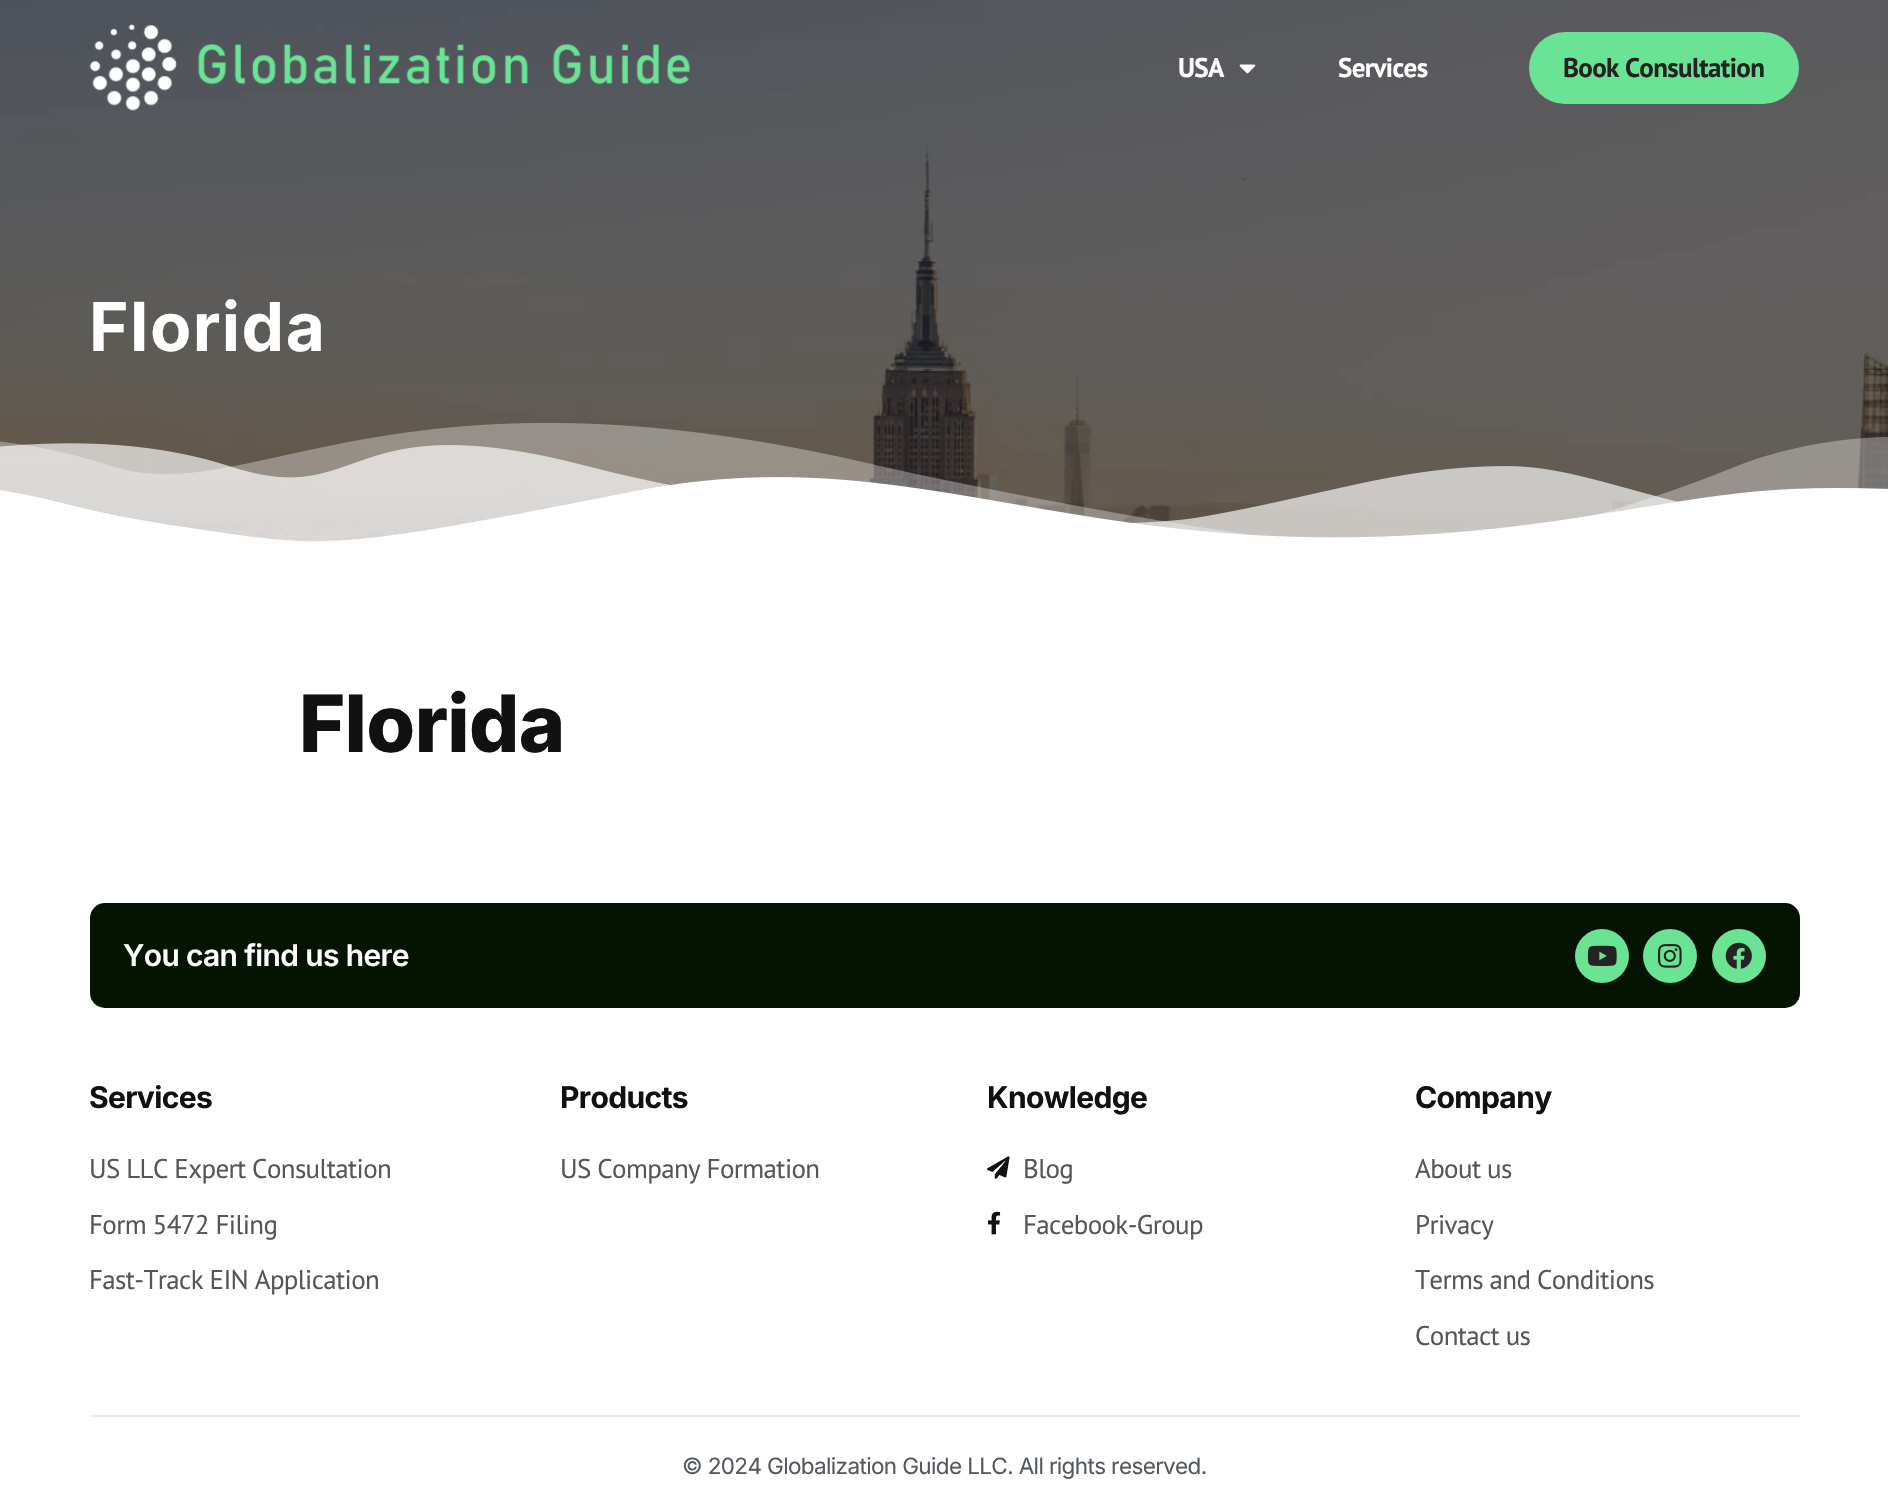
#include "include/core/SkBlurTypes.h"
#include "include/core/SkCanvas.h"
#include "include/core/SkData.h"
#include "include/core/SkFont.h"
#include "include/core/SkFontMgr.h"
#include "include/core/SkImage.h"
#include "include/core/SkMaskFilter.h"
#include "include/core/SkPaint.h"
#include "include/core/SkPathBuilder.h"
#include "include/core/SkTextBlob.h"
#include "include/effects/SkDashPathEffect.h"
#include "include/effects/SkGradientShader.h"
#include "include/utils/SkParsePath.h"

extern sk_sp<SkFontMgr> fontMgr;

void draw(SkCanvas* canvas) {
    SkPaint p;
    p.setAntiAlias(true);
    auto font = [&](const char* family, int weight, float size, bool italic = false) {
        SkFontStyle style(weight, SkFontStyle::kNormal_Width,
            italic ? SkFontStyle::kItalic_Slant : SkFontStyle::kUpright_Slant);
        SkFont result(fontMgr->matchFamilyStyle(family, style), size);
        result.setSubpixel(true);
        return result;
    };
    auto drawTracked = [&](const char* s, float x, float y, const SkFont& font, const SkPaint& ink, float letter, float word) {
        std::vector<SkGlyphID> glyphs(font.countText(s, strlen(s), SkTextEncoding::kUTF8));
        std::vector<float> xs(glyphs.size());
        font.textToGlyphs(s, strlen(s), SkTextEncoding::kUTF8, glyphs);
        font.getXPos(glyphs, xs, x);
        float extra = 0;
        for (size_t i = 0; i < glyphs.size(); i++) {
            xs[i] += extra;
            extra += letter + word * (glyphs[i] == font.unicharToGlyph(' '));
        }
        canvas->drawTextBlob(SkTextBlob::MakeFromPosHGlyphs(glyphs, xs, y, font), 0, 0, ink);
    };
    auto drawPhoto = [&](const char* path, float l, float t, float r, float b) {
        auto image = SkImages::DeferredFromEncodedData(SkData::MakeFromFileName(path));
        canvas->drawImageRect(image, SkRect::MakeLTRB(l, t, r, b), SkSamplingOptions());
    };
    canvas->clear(0xFFFFFFFF);
    drawPhoto("media/3.png", 0, 0, 1888, 542);
    drawPhoto("media/1.png", 89, 24, 690, 111);
    auto font1 = font("PT Sans", 700, 27);
    p.setColor(0xFFFFFFFF);
    drawTracked("USA", 1178, 77, font1, p, -0.63f, 0);
    drawPhoto("media/2.png", 1239, 64, 1256, 74);
    drawTracked("Services", 1338, 77, font1, p, -0.63f, 0);
    p.setColor(0xFF6AE395);
    canvas->drawRoundRect(SkRect::MakeLTRB(1529, 32, 1799, 104), 36, 36, p);
    p.setColor(0xFF232323);
    drawTracked("Book Consultation", 1563, 77, font1, p, -0.63f, 0);
    auto font2 = font("Inter", 700, 67.5f);
    p.setColor(0xFFFFFFFF);
    drawTracked("Florida", 89, 351, font2, p, 1.5f, 0);
    drawPhoto("media/4.png", 0, 422, 1888, 552);
    auto font3 = font("Inter", 800, 79);
    p.setColor(0xFF111111);
    drawTracked("Florida", 299, 752, font3, p, -0.63f, 0);
    p.setColor(0xFF051301);
    canvas->drawRoundRect(SkRect::MakeLTRB(90, 903, 1800, 1008), 15, 15, p);
    auto font4 = font("Inter", 600, 30);
    p.setColor(0xFFFFFFFF);
    drawTracked("You can find us here", 123, 966, font4, p, -0.63f, 0);
    p.setColor(0xFF6AE395);
    canvas->drawCircle(1602, 956, 27, p);
    drawPhoto("media/5.png", 1587, 945, 1617, 966);
    canvas->drawCircle(1670, 956, 27, p);
    drawPhoto("media/6.png", 1658, 944, 1682, 968);
    canvas->drawCircle(1739, 956, 27, p);
    drawPhoto("media/7.png", 1725, 942, 1752, 969);
    auto font5 = font("Inter", 700, 30);
    p.setColor(0xFF111111);
    drawTracked("Services", 89, 1108, font5, p, -0.63f, 0);
    auto font6 = font("PT Sans", 400, 27);
    p.setColor(0xFF565656);
    {
        const struct { const char* s; float x, y; } items[] = {
            {"US LLC Expert Consultation", 89, 1178},
            {"Form 5472 Filing", 89, 1234},
            {"Fast-Track EIN Application", 89, 1289},
        };
        for (auto [s, x, y] : items) {
            drawTracked(s, x, y, font6, p, -0.63f, 0);
        }
    }
    p.setColor(0xFF111111);
    drawTracked("Products", 560, 1108, font5, p, -0.63f, 0);
    p.setColor(0xFF565656);
    drawTracked("US Company Formation", 560, 1178, font6, p, -0.63f, 0);
    p.setColor(0xFF111111);
    drawTracked("Knowledge", 987, 1108, font5, p, -0.63f, 0);
    drawPhoto("media/8.png", 987, 1156, 1010, 1179);
    p.setColor(0xFF565656);
    drawTracked("Blog", 1023, 1178, font6, p, -0.63f, 0);
    drawPhoto("media/9.png", 988, 1211, 1001, 1235);
    drawTracked("Facebook-Group", 1023, 1234, font6, p, -0.63f, 0);
    p.setColor(0xFF111111);
    drawTracked("Company", 1415, 1108, font5, p, -0.63f, 0);
    p.setColor(0xFF565656);
    {
        const struct { const char* s; float x, y; } items[] = {
            {"About us", 1415, 1178},
            {"Privacy", 1415, 1234},
            {"Terms and Conditions", 1415, 1289},
            {"Contact us", 1415, 1345},
        };
        for (auto [s, x, y] : items) {
            drawTracked(s, x, y, font6, p, -0.63f, 0);
        }
    }
    p.setColor(0xFFEAEAEA);
    canvas->drawRect(SkRect::MakeLTRB(90, 1415, 1800, 1417), p);
    auto font7 = font("Inter", 400, 22.5f);
    p.setColor(0xFF54595F);
    drawTracked("© 2024 Globalization Guide LLC. All rights reserved.", 682, 1474, font7, p, -0.63f, 0);
}
